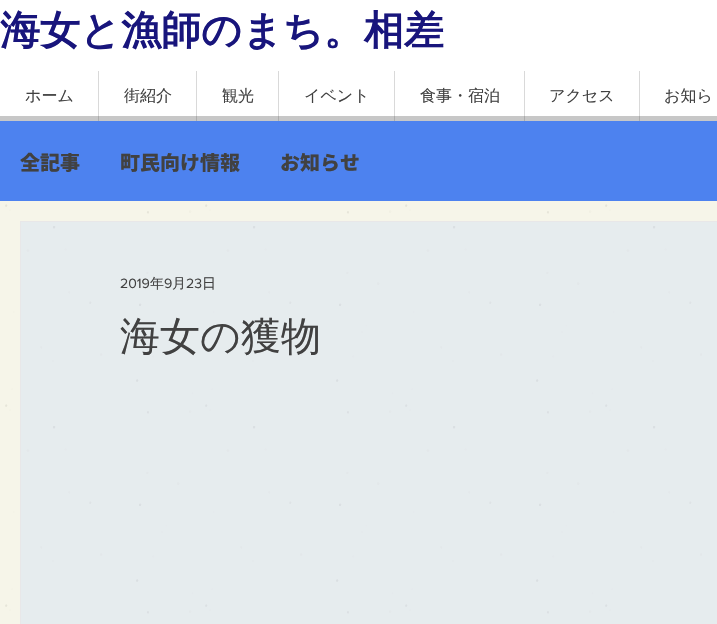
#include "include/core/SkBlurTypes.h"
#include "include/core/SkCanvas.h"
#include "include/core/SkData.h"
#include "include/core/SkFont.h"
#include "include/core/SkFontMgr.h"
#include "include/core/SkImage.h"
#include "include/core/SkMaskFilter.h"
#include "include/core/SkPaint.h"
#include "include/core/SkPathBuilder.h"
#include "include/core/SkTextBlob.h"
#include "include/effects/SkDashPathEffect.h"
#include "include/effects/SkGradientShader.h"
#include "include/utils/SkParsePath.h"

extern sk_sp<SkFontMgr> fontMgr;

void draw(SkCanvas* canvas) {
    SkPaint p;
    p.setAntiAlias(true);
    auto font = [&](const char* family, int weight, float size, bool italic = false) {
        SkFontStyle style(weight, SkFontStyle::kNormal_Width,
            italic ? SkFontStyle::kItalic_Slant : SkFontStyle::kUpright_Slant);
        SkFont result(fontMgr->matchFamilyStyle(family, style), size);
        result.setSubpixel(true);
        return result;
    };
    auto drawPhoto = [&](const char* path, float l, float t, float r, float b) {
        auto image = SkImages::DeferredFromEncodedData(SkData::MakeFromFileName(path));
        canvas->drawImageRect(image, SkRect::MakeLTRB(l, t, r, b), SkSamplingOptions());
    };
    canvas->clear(0xFFF7F7F7);
    {
        const struct { float l, t, r, b; SkColor color; } items[] = {
            {0, 0, 717, 116, 0xFFFFFFFF},
            {639, 71, 640, 121, 0xFFD9D9D9},
            {524, 71, 525, 121, 0xFFD9D9D9},
            {394, 71, 395, 121, 0xFFD9D9D9},
            {278, 71, 279, 121, 0xFFD9D9D9},
            {196, 71, 197, 121, 0xFFD9D9D9},
            {98, 71, 99, 121, 0xFFD9D9D9},
            {0, 116, 717, 121, 0xFFC7C7C7},
            {639, 116, 640, 121, 0xFFACACAC},
            {524, 116, 525, 121, 0xFFACACAC},
            {394, 116, 395, 121, 0xFFACACAC},
            {278, 116, 279, 121, 0xFFACACAC},
            {196, 116, 197, 121, 0xFFACACAC},
            {98, 116, 99, 121, 0xFFACACAC},
        };
        for (auto [l, t, r, b, color] : items) {
            p.setColor(color);
            canvas->drawRect(SkRect::MakeLTRB(l, t, r, b), p);
        }
    }
    auto font1 = font("WenQuanYi Zen Hei", 700, 40);
    p.setColor(0xFF18157C);
    canvas->drawString("海女と漁師のまち。相差", 0, 44, font1, p);
    auto font2 = font("WenQuanYi Zen Hei", 500, 16);
    p.setColor(0xFF414141);
    {
        const struct { const char* s; float x, y; } items[] = {
            {"ホーム", 25, 101},
            {"街紹介", 124, 101},
            {"観光", 222, 101},
            {"イベント", 304, 101},
            {"食事・宿泊", 420, 101},
            {"アクセス", 549, 101},
            {"お知ら", 664, 101},
        };
        for (auto [s, x, y] : items) {
            canvas->drawString(s, x, y, font2, p);
        }
    }
    drawPhoto("media/1.png", 5, 204, 702, 614);
    p.setColor(0x33F4EEB5);
    canvas->drawRect(SkRect::MakeLTRB(0, 201, 717, 624), p);
    p.setColor(0xFF4D82EF);
    canvas->drawRect(SkRect::MakeLTRB(0, 121, 717, 201), p);
    auto font3 = font("Noto Sans CJK JP", 900, 20);
    p.setColor(0xFF414141);
    {
        const struct { const char* s; float x, y; } items[] = {
            {"全記事", 20, 170},
            {"町民向け情報", 120, 170},
            {"お知らせ", 280, 170},
        };
        for (auto [s, x, y] : items) {
            canvas->drawString(s, x, y, font3, p);
        }
    }
    p.setColor(0x4AC1D4FA);
    canvas->drawRect(SkRect::MakeLTRB(20.5f, 221.5f, 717.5f, 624.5f), p);
    p.setStyle(SkPaint::kStroke_Style);
    p.setStrokeWidth(1);
    p.setColor(0xFFE8E7E8);
    canvas->drawRect(SkRect::MakeLTRB(20.5f, 221.5f, 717.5f, 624.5f), p);
    auto font4 = font("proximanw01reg", 400, 14);
    p.setStyle(SkPaint::kFill_Style);
    p.setColor(0xFF414141);
    canvas->drawString("2019", 120, 288, font4, p);
    auto font5 = font("WenQuanYi Zen Hei", 500, 14);
    canvas->drawString("年", 150, 288, font5, p);
    canvas->drawString("9", 164, 288, font4, p);
    canvas->drawString("月", 172, 288, font5, p);
    canvas->drawString("23", 186, 288, font4, p);
    canvas->drawString("日", 202, 288, font5, p);
    auto font6 = font("WenQuanYi Zen Hei", 500, 40);
    canvas->drawString("海女の獲物", 120, 350, font6, p);
}
